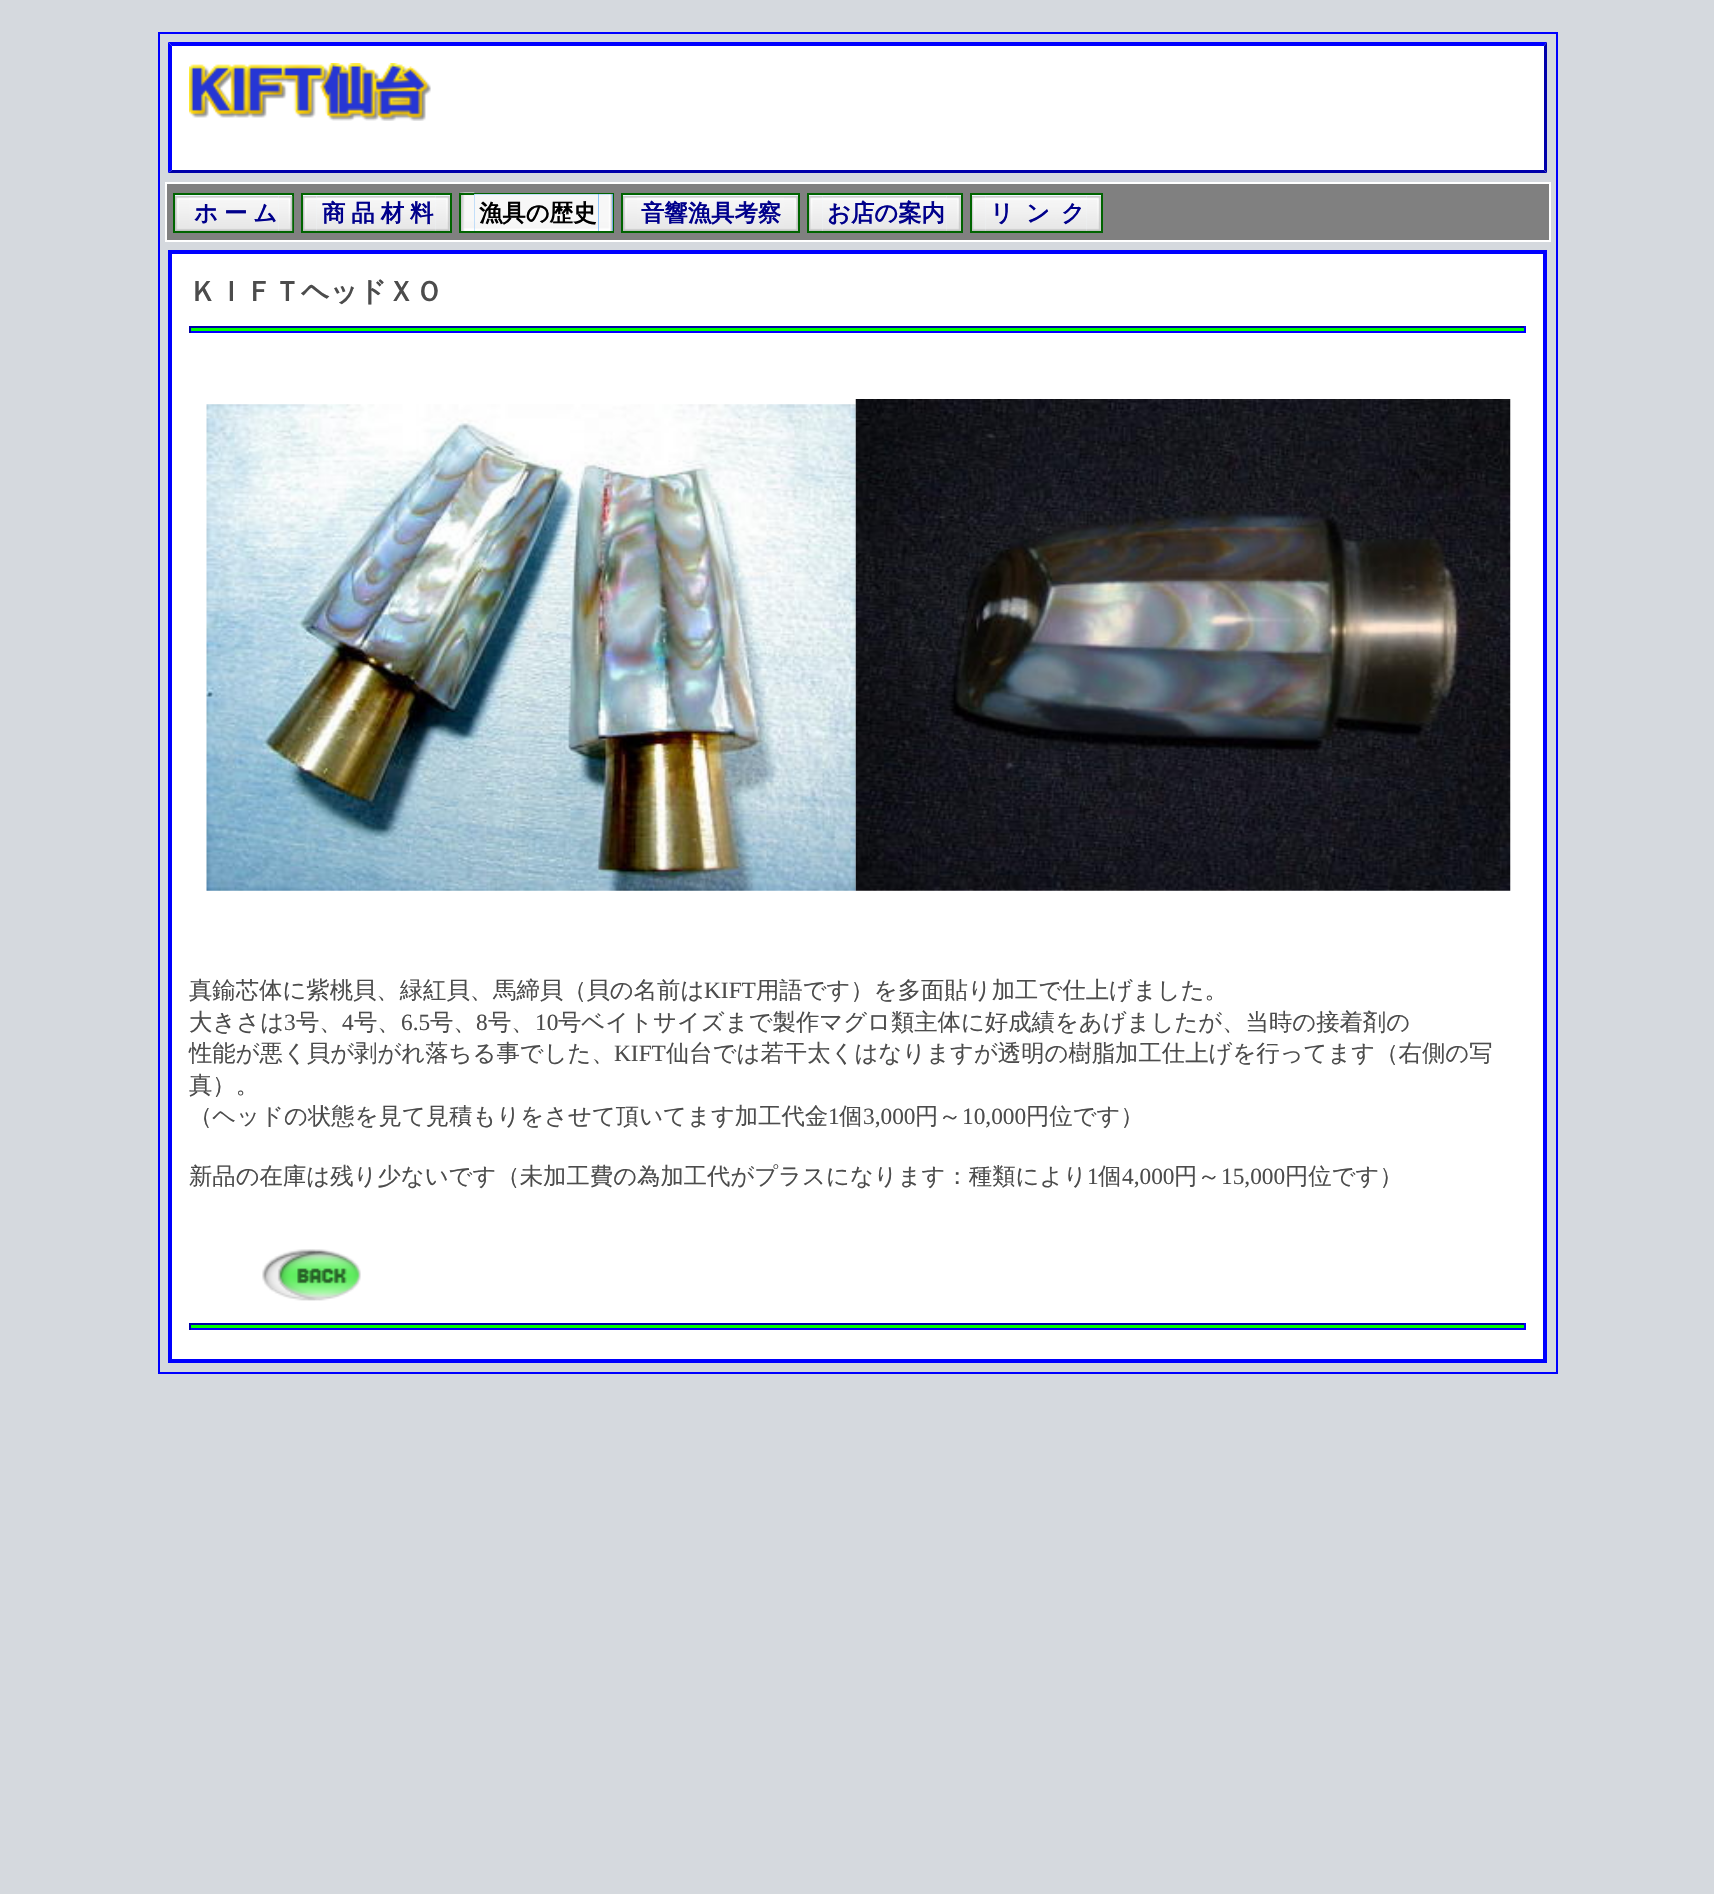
#include "include/core/SkBlurTypes.h"
#include "include/core/SkCanvas.h"
#include "include/core/SkData.h"
#include "include/core/SkFont.h"
#include "include/core/SkFontMgr.h"
#include "include/core/SkImage.h"
#include "include/core/SkMaskFilter.h"
#include "include/core/SkPaint.h"
#include "include/core/SkPathBuilder.h"
#include "include/core/SkTextBlob.h"
#include "include/effects/SkDashPathEffect.h"
#include "include/effects/SkGradientShader.h"
#include "include/utils/SkParsePath.h"

extern sk_sp<SkFontMgr> fontMgr;

void draw(SkCanvas* canvas) {
    SkPaint p;
    p.setAntiAlias(true);
    auto font = [&](const char* family, int weight, float size, bool italic = false) {
        SkFontStyle style(weight, SkFontStyle::kNormal_Width,
            italic ? SkFontStyle::kItalic_Slant : SkFontStyle::kUpright_Slant);
        SkFont result(fontMgr->matchFamilyStyle(family, style), size);
        result.setSubpixel(true);
        return result;
    };
    auto drawTracked = [&](const char* s, float x, float y, const SkFont& font, const SkPaint& ink, float letter, float word) {
        std::vector<SkGlyphID> glyphs(font.countText(s, strlen(s), SkTextEncoding::kUTF8));
        std::vector<float> xs(glyphs.size());
        font.textToGlyphs(s, strlen(s), SkTextEncoding::kUTF8, glyphs);
        font.getXPos(glyphs, xs, x);
        float extra = 0;
        for (size_t i = 0; i < glyphs.size(); i++) {
            xs[i] += extra;
            extra += letter + word * (glyphs[i] == font.unicharToGlyph(' '));
        }
        canvas->drawTextBlob(SkTextBlob::MakeFromPosHGlyphs(glyphs, xs, y, font), 0, 0, ink);
    };
    auto drawPhoto = [&](const char* path, float l, float t, float r, float b) {
        auto image = SkImages::DeferredFromEncodedData(SkData::MakeFromFileName(path));
        canvas->drawImageRect(image, SkRect::MakeLTRB(l, t, r, b), SkSamplingOptions());
    };
    canvas->clear(0xFFD5D9DE);
    p.setStyle(SkPaint::kStroke_Style);
    p.setStrokeWidth(2);
    p.setColor(0xFF0000FF);
    canvas->drawRect(SkRect::MakeLTRB(159, 33, 1557, 1373), p);
    p.setStyle(SkPaint::kFill_Style);
    p.setColor(0xFFFFFFFF);
    canvas->drawRect(SkRect::MakeLTRB(168, 42, 1547, 173), p);
    p.setColor(0xFF0000FF);
    canvas->drawPath(SkPathBuilder().moveTo(168, 42).lineTo(1547, 42).lineTo(1544, 46).lineTo(172, 46).close().detach(), p);
    p.setColor(0xFF0000AA);
    canvas->drawPath(SkPathBuilder().moveTo(1547, 42).lineTo(1547, 173).lineTo(1544, 170).lineTo(1544, 46).close().detach(), p);
    canvas->drawPath(SkPathBuilder().moveTo(1547, 173).lineTo(168, 173).lineTo(172, 170).lineTo(1544, 170).close().detach(), p);
    p.setColor(0xFF0000FF);
    canvas->drawPath(SkPathBuilder().moveTo(168, 173).lineTo(168, 42).lineTo(172, 46).lineTo(172, 170).close().detach(), p);
    drawPhoto("media/1.png", 189, 63, 431, 121);
    p.setColor(0xFF808080);
    canvas->drawRect(SkRect::MakeLTRB(166, 183, 1550, 241), p);
    p.setStyle(SkPaint::kStroke_Style);
    p.setColor(0xFFFFFFFF);
    canvas->drawRect(SkRect::MakeLTRB(166, 183, 1550, 241), p);
    p.setStyle(SkPaint::kFill_Style);
    p.setColor(0xFFF0F8FF);
    canvas->drawRect(SkRect::MakeLTRB(175, 195, 292, 231), p);
    drawPhoto("media/2.png", 175, 196, 189, 231);
    p.setStyle(SkPaint::kStroke_Style);
    p.setColor(0xFF006400);
    canvas->drawRect(SkRect::MakeLTRB(174, 194, 293, 232), p);
    drawPhoto("media/3.png", 278, 196, 293, 231);
    drawPhoto("media/4.png", 189, 196, 278, 231);
    auto font1 = font("WenQuanYi Zen Hei", 700, 23.35f);
    p.setStyle(SkPaint::kFill_Style);
    p.setColor(0xFF00008B);
    drawTracked("ホ ー ム", 194, 221, font1, p, 0, -1);
    p.setColor(0xFFF0F8FF);
    canvas->drawRect(SkRect::MakeLTRB(303, 195, 450, 231), p);
    drawPhoto("media/5.png", 303, 196, 317, 231);
    p.setStyle(SkPaint::kStroke_Style);
    p.setColor(0xFF006400);
    canvas->drawRect(SkRect::MakeLTRB(302, 194, 451, 232), p);
    drawPhoto("media/6.png", 435, 196, 450, 231);
    drawPhoto("media/7.png", 317, 196, 436, 231);
    p.setStyle(SkPaint::kFill_Style);
    p.setColor(0xFF00008B);
    drawTracked("商 品 材 料", 322, 221, font1, p, 0, -1);
    drawPhoto("media/8.png", 460, 192, 475, 231);
    p.setStyle(SkPaint::kStroke_Style);
    p.setColor(0xFF006400);
    canvas->drawRect(SkRect::MakeLTRB(460, 194, 613, 232), p);
    p.setStyle(SkPaint::kFill_Style);
    p.setColor(0xFF1E90FF);
    canvas->drawRect(SkRect::MakeLTRB(474, 194, 613, 231), p);
    drawPhoto("media/9.png", 599, 194, 613, 231);
    drawPhoto("media/10.png", 474, 194, 599, 231);
    p.setColor(0xFF000000);
    canvas->drawString("漁具の歴史", 479, 221, font1, p);
    p.setColor(0xFFF0F8FF);
    canvas->drawRect(SkRect::MakeLTRB(623, 195, 798, 196), p);
    drawPhoto("media/2.png", 623, 196, 637, 231);
    p.setStyle(SkPaint::kStroke_Style);
    p.setColor(0xFF006400);
    canvas->drawRect(SkRect::MakeLTRB(622, 194, 799, 232), p);
    drawPhoto("media/11.png", 784, 196, 798, 231);
    drawPhoto("media/12.png", 637, 196, 784, 231);
    p.setStyle(SkPaint::kFill_Style);
    p.setColor(0xFF00008B);
    canvas->drawString("音響漁具考察", 641, 221, font1, p);
    p.setColor(0xFFF0F8FF);
    canvas->drawRect(SkRect::MakeLTRB(809, 195, 961, 231), p);
    drawPhoto("media/13.png", 809, 196, 823, 231);
    p.setStyle(SkPaint::kStroke_Style);
    p.setColor(0xFF006400);
    canvas->drawRect(SkRect::MakeLTRB(808, 194, 962, 232), p);
    drawPhoto("media/6.png", 946, 196, 961, 231);
    drawPhoto("media/14.png", 822, 196, 947, 231);
    p.setStyle(SkPaint::kFill_Style);
    p.setColor(0xFF00008B);
    canvas->drawString("お店の案内", 827, 221, font1, p);
    p.setColor(0xFFF0F8FF);
    canvas->drawRect(SkRect::MakeLTRB(972, 195, 1101, 231), p);
    drawPhoto("media/15.png", 972, 196, 986, 231);
    p.setStyle(SkPaint::kStroke_Style);
    p.setColor(0xFF006400);
    canvas->drawRect(SkRect::MakeLTRB(971, 194, 1102, 232), p);
    drawPhoto("media/6.png", 1086, 196, 1101, 231);
    drawPhoto("media/16.png", 985, 196, 1087, 231);
    p.setStyle(SkPaint::kFill_Style);
    p.setColor(0xFF00008B);
    {
        const struct { const char* s; float x, y; } items[] = {
            {"リ", 990, 221},
            {"ン", 1026, 221},
            {"ク", 1061, 221},
        };
        for (auto [s, x, y] : items) {
            canvas->drawString(s, x, y, font1, p);
        }
    }
    p.setColor(0xFFFFFFFF);
    canvas->drawRect(SkRect::MakeLTRB(170, 252, 1545, 1361), p);
    p.setStyle(SkPaint::kStroke_Style);
    p.setStrokeWidth(4);
    p.setColor(0xFF0000FF);
    canvas->drawRect(SkRect::MakeLTRB(170, 252, 1545, 1361), p);
    auto font2 = font("WenQuanYi Zen Hei", 700, 28);
    p.setStyle(SkPaint::kFill_Style);
    p.setColor(0xFF4C4C4C);
    canvas->drawString("ＫＩＦＴヘッドＸＯ", 189, 301, font2, p);
    {
        const struct { float l, t, r, b; SkColor color; } items[] = {
            {189, 328, 1526, 331, 0xFF00FF00},
            {189, 326, 1526, 328, 0xFF0000AA},
            {1524, 326, 1526, 333, 0xFF0000FF},
            {189, 331, 1526, 333, 0xFF0000FF},
            {189, 326, 191, 333, 0xFF0000AA},
        };
        for (auto [l, t, r, b, color] : items) {
            p.setColor(color);
            canvas->drawRect(SkRect::MakeLTRB(l, t, r, b), p);
        }
    }
    drawPhoto("media/17.png", 206, 404, 856, 891);
    drawPhoto("media/18.png", 855, 399, 1511, 891);
    auto font3 = font("WenQuanYi Zen Hei", 500, 23.35f);
    p.setColor(0xFF4C4C4C);
    canvas->drawString("真鍮芯体に紫桃貝、緑紅貝、馬締貝（貝の名前は", 189, 998, font3, p);
    auto font4 = font("Liberation Serif", 400, 23.35f);
    canvas->drawString("KIFT", 704, 998, font4, p);
    canvas->drawString("用語です）を多面貼り加工で仕上げました。", 756, 998, font3, p);
    canvas->drawString("大きさは", 189, 1030, font3, p);
    canvas->drawString("3", 284, 1030, font4, p);
    canvas->drawString("号、", 296, 1030, font3, p);
    canvas->drawString("4", 342, 1030, font4, p);
    canvas->drawString("号、", 354, 1030, font3, p);
    canvas->drawString("6.5", 401, 1030, font4, p);
    canvas->drawString("号、", 430, 1030, font3, p);
    canvas->drawString("8", 476, 1030, font4, p);
    canvas->drawString("号、", 488, 1030, font3, p);
    canvas->drawString("10", 535, 1030, font4, p);
    canvas->drawString("号ベイトサイズまで製作マグロ類主体に好成績をあげましたが、当時の接着剤の", 558, 1030, font3, p);
    canvas->drawString("性能が悪く貝が剥がれ落ちる事でした、", 189, 1061, font3, p);
    canvas->drawString("KIFT", 614, 1061, font4, p);
    {
        const struct { const char* s; float x, y; } items[] = {
            {"仙台では若干太くはなりますが透明の樹脂加工仕上げを行ってます（右側の写", 666, 1061},
            {"真）。", 189, 1093},
            {"（ヘッドの状態を見て見積もりをさせて頂いてます加工代金", 189, 1124},
        };
        for (auto [s, x, y] : items) {
            canvas->drawString(s, x, y, font3, p);
        }
    }
    canvas->drawString("1", 828, 1124, font4, p);
    canvas->drawString("個", 839, 1124, font3, p);
    canvas->drawString("3,000", 863, 1124, font4, p);
    canvas->drawString("円～", 915, 1124, font3, p);
    canvas->drawString("10,000", 962, 1124, font4, p);
    canvas->drawString("円位です）", 1026, 1124, font3, p);
    canvas->drawString("新品の在庫は残り少ないです（未加工費の為加工代がプラスになります：種類により", 189, 1184, font3, p);
    canvas->drawString("1", 1087, 1184, font4, p);
    canvas->drawString("個", 1098, 1184, font3, p);
    canvas->drawString("4,000", 1122, 1184, font4, p);
    canvas->drawString("円～", 1174, 1184, font3, p);
    canvas->drawString("15,000", 1221, 1184, font4, p);
    canvas->drawString("円位です）", 1285, 1184, font3, p);
    drawPhoto("media/19.png", 262, 1249, 361, 1301);
    {
        const struct { float l, t, r, b; SkColor color; } items[] = {
            {189, 1325, 1526, 1328, 0xFF00FF00},
            {189, 1323, 1526, 1325, 0xFF0000AA},
            {1524, 1323, 1526, 1330, 0xFF0000FF},
            {189, 1328, 1526, 1330, 0xFF0000FF},
            {189, 1323, 191, 1330, 0xFF0000AA},
        };
        for (auto [l, t, r, b, color] : items) {
            p.setColor(color);
            canvas->drawRect(SkRect::MakeLTRB(l, t, r, b), p);
        }
    }
}
